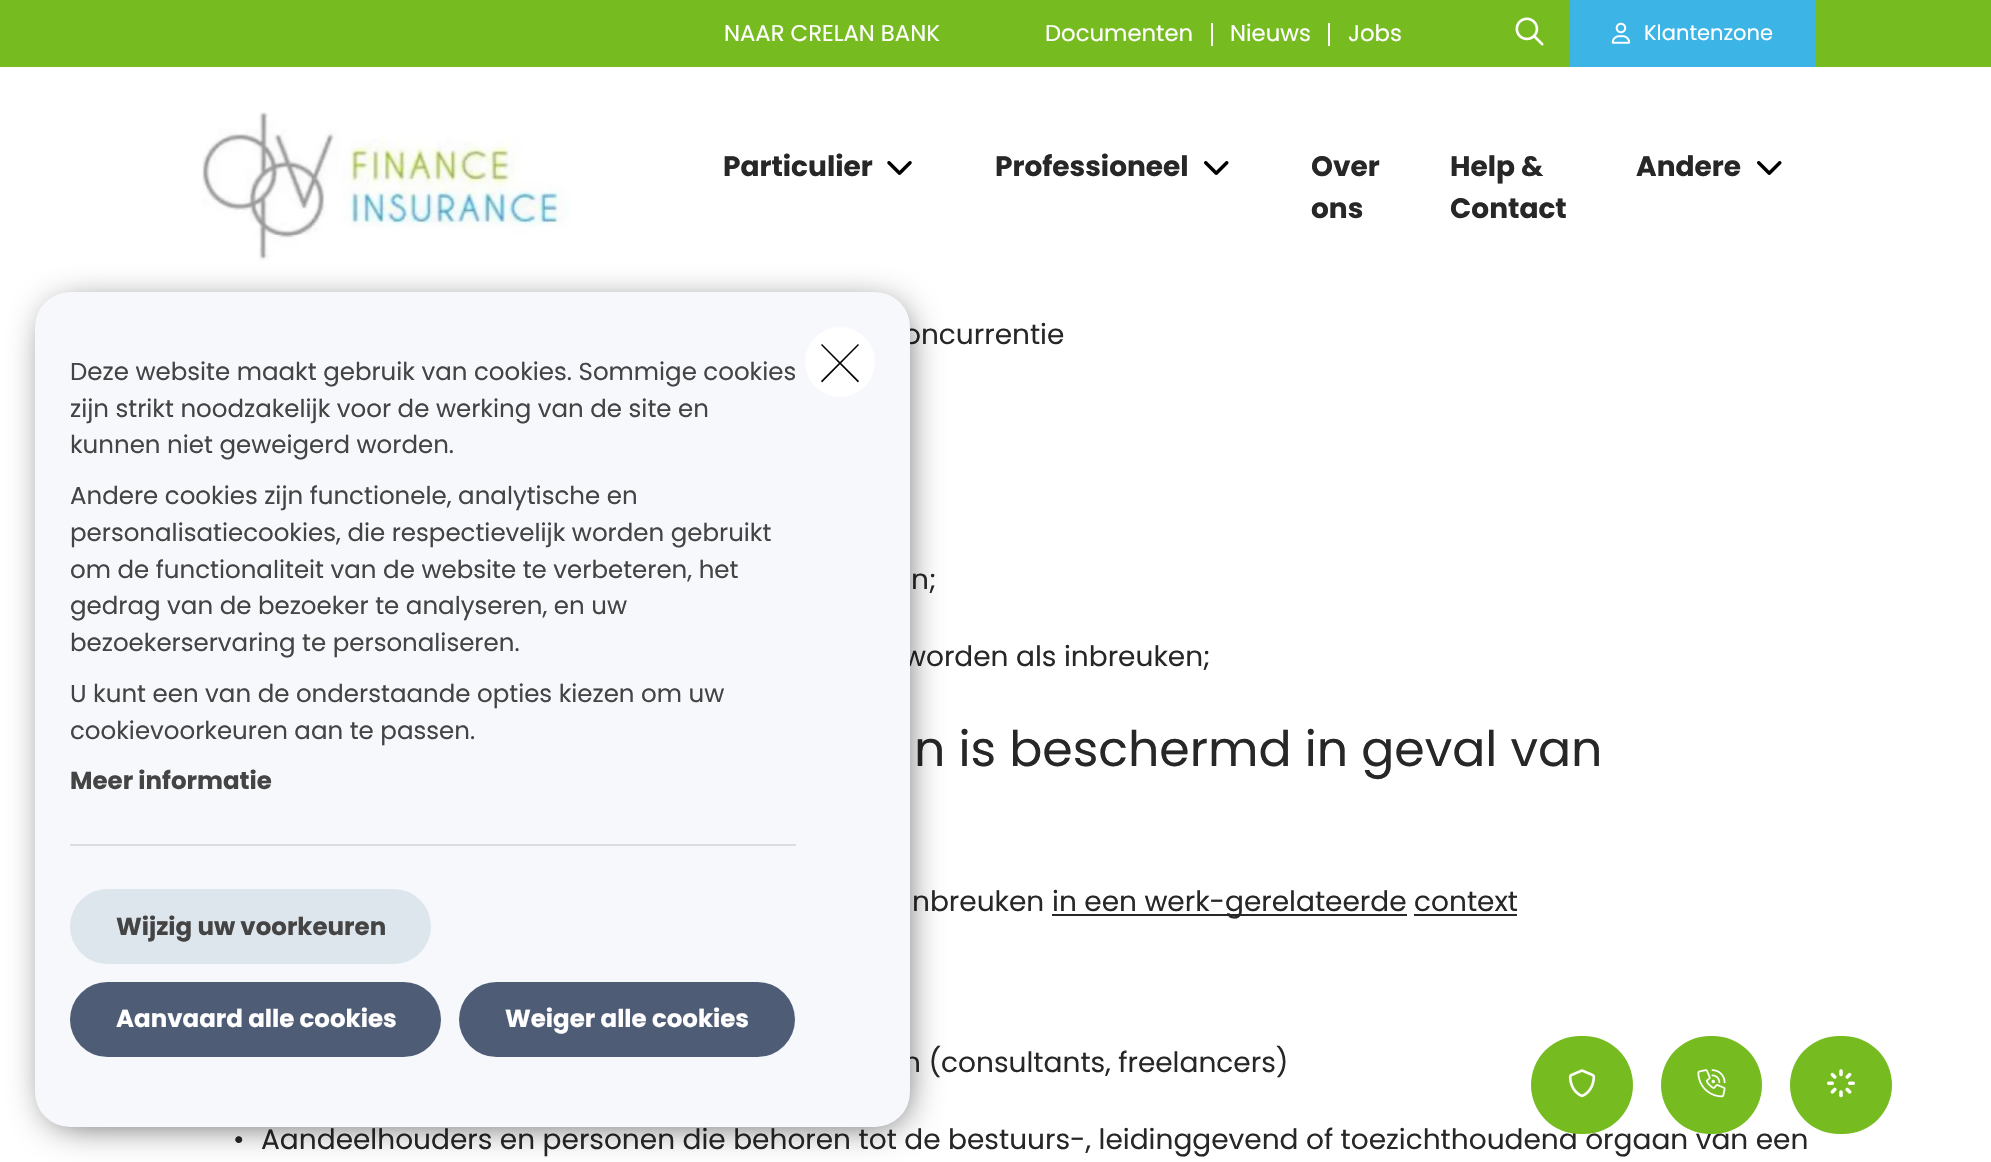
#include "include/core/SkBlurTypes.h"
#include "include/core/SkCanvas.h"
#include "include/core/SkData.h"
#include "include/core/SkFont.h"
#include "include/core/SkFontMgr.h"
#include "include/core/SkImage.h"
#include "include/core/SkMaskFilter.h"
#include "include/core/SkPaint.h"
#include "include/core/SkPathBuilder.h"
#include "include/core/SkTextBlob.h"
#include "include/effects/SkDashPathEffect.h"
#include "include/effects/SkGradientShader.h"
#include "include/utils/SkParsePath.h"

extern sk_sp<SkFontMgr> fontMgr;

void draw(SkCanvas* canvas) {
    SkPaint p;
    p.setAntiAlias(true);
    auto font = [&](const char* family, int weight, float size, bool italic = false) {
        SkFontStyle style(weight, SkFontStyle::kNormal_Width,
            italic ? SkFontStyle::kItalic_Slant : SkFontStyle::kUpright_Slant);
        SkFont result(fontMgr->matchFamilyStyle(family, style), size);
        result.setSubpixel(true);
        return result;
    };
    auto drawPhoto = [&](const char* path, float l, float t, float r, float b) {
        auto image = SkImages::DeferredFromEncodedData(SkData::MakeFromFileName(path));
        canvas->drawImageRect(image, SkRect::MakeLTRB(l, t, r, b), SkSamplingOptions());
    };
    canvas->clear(0xFFFFFFFF);
    p.setColor(0xFF76BC21);
    canvas->drawRect(SkRect::MakeLTRB(0, 0, 1991, 67), p);
    auto font1 = font("Poppins", 400, 22.75f);
    p.setColor(0xFFFFFFFF);
    canvas->drawString("NAAR CRELAN BANK", 724, 41, font1, p);
    canvas->drawString("Documenten", 1045, 41, font1, p);
    canvas->drawRect(SkRect::MakeLTRB(1211, 23, 1213, 46), p);
    canvas->drawString("Nieuws", 1230, 41, font1, p);
    canvas->drawRect(SkRect::MakeLTRB(1328, 23, 1330, 46), p);
    canvas->drawString("Jobs", 1348, 41, font1, p);
    drawPhoto("media/1.png", 1515, 17, 1544, 46);
    p.setColor(0xFF3CB4E5);
    canvas->drawRect(SkRect::MakeLTRB(1570, 0, 1815, 67), p);
    drawPhoto("media/2.png", 1611, 22, 1631, 44);
    auto font2 = font("Poppins", 400, 21);
    p.setColor(0xFFFFFFFF);
    canvas->drawString("Klantenzone", 1644, 40, font2, p);
    drawPhoto("media/3.png", 202, 112, 570, 261);
    auto font3 = font("Poppins", 700, 28);
    p.setColor(0xFF272727);
    canvas->drawString("Particulier", 723, 176, font3, p);
    drawPhoto("media/4.png", 887, 161, 912, 175);
    canvas->drawString("Professioneel", 995, 176, font3, p);
    drawPhoto("media/5.png", 1204, 161, 1229, 175);
    {
        const struct { const char* s; float x, y; } items[] = {
            {"Over", 1311, 176},
            {"ons", 1311, 218},
            {"Help &", 1450, 176},
            {"Contact", 1450, 218},
            {"Andere", 1636, 176},
        };
        for (auto [s, x, y] : items) {
            canvas->drawString(s, x, y, font3, p);
        }
    }
    drawPhoto("media/5.png", 1757, 161, 1782, 175);
    auto font4 = font("Poppins", 400, 28);
    {
        const struct { const char* s; float x, y; } items[] = {
            {"oncurrentie", 903, 344},
            {"n;", 911, 589},
            {"worden als inbreuken;", 903, 666},
        };
        for (auto [s, x, y] : items) {
            canvas->drawString(s, x, y, font4, p);
        }
    }
    auto font5 = font("Poppins", 400, 49);
    canvas->drawString("n is beschermd in geval van", 914, 766, font5, p);
    canvas->drawString("nbreuken", 912, 911, font4, p);
    canvas->drawRect(SkRect::MakeLTRB(1052, 914, 1407, 916), p);
    canvas->drawString("in een werk-gerelateerde context", 1052, 911, font4, p);
    canvas->drawRect(SkRect::MakeLTRB(1414, 914, 1517, 916), p);
    {
        const struct { const char* s; float x, y; } items[] = {
            {"n (consultants, freelancers)", 903, 1072},
            {"•", 233, 1149},
            {"Aandeelhouders en personen die behoren tot de bestuurs-, leidinggevend of toezichthoudend orgaan van een", 261, 1149},
        };
        for (auto [s, x, y] : items) {
            canvas->drawString(s, x, y, font4, p);
        }
    }
    p.setColor(0xBF000000);
    p.setMaskFilter(SkMaskFilter::MakeBlur(kNormal_SkBlurStyle, 18.5f));
    canvas->drawRoundRect(SkRect::MakeLTRB(49, 308, 903, 1122), 25, 25, p);
    p.setMaskFilter(nullptr);
    p.setColor(0xFFF6F8FC);
    canvas->drawRoundRect(SkRect::MakeLTRB(35, 292, 910, 1127), 35, 35, p);
    p.setColor(0xFFDDDDDD);
    canvas->drawRect(SkRect::MakeLTRB(70, 844, 796, 846), p);
    auto font6 = font("Poppins", 400, 24.5f);
    p.setColor(0xFF444444);
    {
        const struct { const char* s; float x, y; } items[] = {
            {"Deze website maakt gebruik van cookies. Sommige cookies", 70, 380},
            {"zijn strikt noodzakelijk voor de werking van de site en", 70, 417},
            {"kunnen niet geweigerd worden.", 70, 453},
            {"Andere cookies zijn functionele, analytische en", 70, 504},
            {"personalisatiecookies, die respectievelijk worden gebruikt", 70, 541},
            {"om de functionaliteit van de website te verbeteren, het", 70, 578},
            {"gedrag van de bezoeker te analyseren, en uw", 70, 614},
            {"bezoekerservaring te personaliseren.", 70, 651},
            {"U kunt een van de onderstaande opties kiezen om uw", 70, 702},
            {"cookievoorkeuren aan te passen.", 70, 739},
        };
        for (auto [s, x, y] : items) {
            canvas->drawString(s, x, y, font6, p);
        }
    }
    auto font7 = font("Poppins", 700, 24.5f);
    canvas->drawString("Meer informatie", 70, 789, font7, p);
    p.setColor(0xFFDDE5ED);
    canvas->drawRoundRect(SkRect::MakeLTRB(70, 889, 431, 964), 37.5f, 37.5f, p);
    p.setColor(0xFF444444);
    canvas->drawString("Wijzig uw voorkeuren", 116, 935, font7, p);
    p.setColor(0xFF4E5C76);
    canvas->drawRoundRect(SkRect::MakeLTRB(70, 982, 441, 1057), 37.5f, 37.5f, p);
    p.setColor(0xFFFFFFFF);
    canvas->drawString("Aanvaard alle cookies", 116, 1027, font7, p);
    p.setColor(0xFF4E5C76);
    canvas->drawRoundRect(SkRect::MakeLTRB(459, 982, 795, 1057), 37.5f, 37.5f, p);
    p.setColor(0xFFFFFFFF);
    canvas->drawString("Weiger alle cookies", 505, 1027, font7, p);
    canvas->drawCircle(840, 362, 35, p);
    p.setColor(0xFF000000);
    canvas->drawPath(SkPathBuilder().moveTo(822, 344).lineTo(859, 381).lineTo(858, 382.5f).lineTo(821, 345).close().detach(), p);
    canvas->drawPath(SkPathBuilder().moveTo(821, 381).lineTo(858, 344).lineTo(859, 345).lineTo(822, 382.5f).close().detach(), p);
    p.setColor(0xFF76BC21);
    canvas->drawRoundRect(SkRect::MakeLTRB(1531, 1036, 1633, 1134), 49, 49, p);
    drawPhoto("media/6.png", 1568, 1069, 1596, 1098);
    canvas->drawRoundRect(SkRect::MakeLTRB(1661, 1036, 1762, 1134), 49, 49, p);
    drawPhoto("media/7.png", 1697, 1069, 1726, 1098);
    canvas->drawRoundRect(SkRect::MakeLTRB(1790, 1036, 1892, 1134), 49, 49, p);
    drawPhoto("media/8.png", 1827, 1069, 1855, 1098);
}
